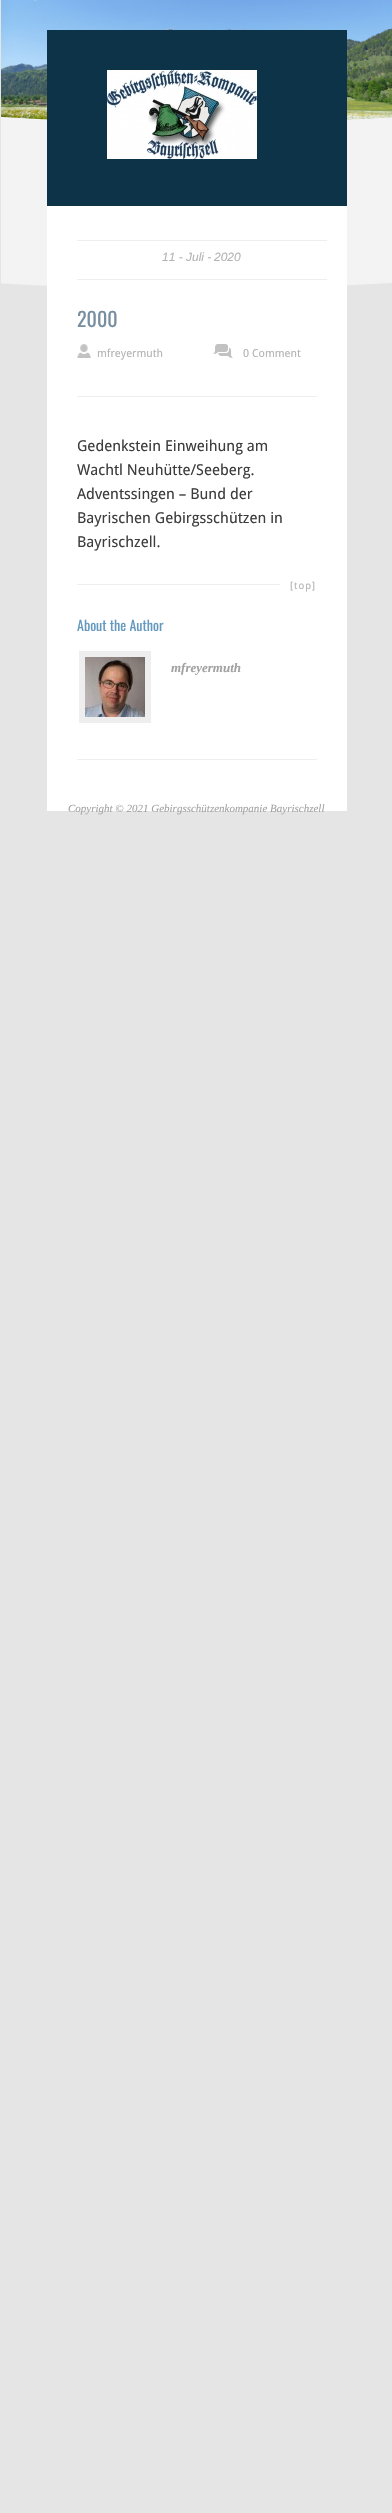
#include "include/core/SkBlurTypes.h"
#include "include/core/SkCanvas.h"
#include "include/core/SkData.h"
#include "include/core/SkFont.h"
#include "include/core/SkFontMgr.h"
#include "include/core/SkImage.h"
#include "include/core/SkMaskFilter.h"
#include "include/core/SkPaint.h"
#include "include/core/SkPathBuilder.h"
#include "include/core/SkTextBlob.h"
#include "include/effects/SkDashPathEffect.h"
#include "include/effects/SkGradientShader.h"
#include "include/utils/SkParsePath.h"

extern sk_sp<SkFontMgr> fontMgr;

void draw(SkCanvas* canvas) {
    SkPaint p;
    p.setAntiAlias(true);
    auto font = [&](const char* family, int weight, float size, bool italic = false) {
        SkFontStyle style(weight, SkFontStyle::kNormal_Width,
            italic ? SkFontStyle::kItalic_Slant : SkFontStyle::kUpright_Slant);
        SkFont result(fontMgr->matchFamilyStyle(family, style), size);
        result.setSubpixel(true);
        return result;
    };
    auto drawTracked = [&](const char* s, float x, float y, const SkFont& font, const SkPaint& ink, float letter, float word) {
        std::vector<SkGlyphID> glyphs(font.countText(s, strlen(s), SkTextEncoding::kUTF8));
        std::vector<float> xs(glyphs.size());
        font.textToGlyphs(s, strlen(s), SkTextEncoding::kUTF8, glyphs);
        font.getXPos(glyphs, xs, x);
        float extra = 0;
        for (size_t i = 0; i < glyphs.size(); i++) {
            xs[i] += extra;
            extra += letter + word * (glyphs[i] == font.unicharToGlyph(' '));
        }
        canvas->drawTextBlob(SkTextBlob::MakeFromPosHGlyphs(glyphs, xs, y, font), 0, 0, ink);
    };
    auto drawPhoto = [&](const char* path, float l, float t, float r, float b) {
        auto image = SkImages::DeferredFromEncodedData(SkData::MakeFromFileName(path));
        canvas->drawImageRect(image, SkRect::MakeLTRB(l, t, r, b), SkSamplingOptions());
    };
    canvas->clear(0xFFE5E5E5);
    drawPhoto("media/1.png", 1, 0, 392, 120);
    drawPhoto("media/2.png", 1, 117, 392, 286);
    p.setColor(0xFF0C3348);
    canvas->drawRect(SkRect::MakeLTRB(47, 30, 347, 206), p);
    drawPhoto("media/3.png", 107, 70, 257, 159);
    {
        const struct { float l, t, r, b; SkColor color; } items[] = {
            {47, 206, 347, 811, 0xFFFFFFFF},
            {77, 240, 327, 241, 0xFFEEEEEE},
            {77, 279, 327, 280, 0xFFEEEEEE},
        };
        for (auto [l, t, r, b, color] : items) {
            p.setColor(color);
            canvas->drawRect(SkRect::MakeLTRB(l, t, r, b), p);
        }
    }
    auto font1 = font("Liberation Sans", 400, 12, true);
    p.setColor(0xFFB4B4B4);
    {
        const struct { const char* s; float x, y; } items[] = {
            {"11 -", 162, 261},
            {"Juli -", 186, 261},
            {"2020", 214, 261},
        };
        for (auto [s, x, y] : items) {
            canvas->drawString(s, x, y, font1, p);
        }
    }
    auto font2 = font("Oswald", 400, 20);
    p.setColor(0xFF768E9F);
    canvas->drawString("2000", 77, 327, font2, p);
    drawPhoto("media/4.png", 77, 344, 91, 358);
    auto font3 = font("Droid Sans", 400, 11);
    p.setColor(0xFFB4B4B4);
    canvas->drawString("mfreyermuth", 97, 357, font3, p);
    drawPhoto("media/5.png", 213, 344, 233, 358);
    canvas->drawString("0 Comment", 243, 357, font3, p);
    p.setColor(0xFFEEEEEE);
    canvas->drawRect(SkRect::MakeLTRB(77, 396, 317, 397), p);
    auto font4 = font("Droid Sans", 400, 15);
    p.setColor(0xFF3D3D3D);
    {
        const struct { const char* s; float x, y; } items[] = {
            {"Gedenkstein Einweihung am", 77, 451},
            {"Wachtl Neuhütte/Seeberg.", 77, 475},
            {"Adventssingen – Bund der", 77, 499},
            {"Bayrischen Gebirgsschützen in", 77, 523},
            {"Bayrischzell.", 77, 547},
        };
        for (auto [s, x, y] : items) {
            canvas->drawString(s, x, y, font4, p);
        }
    }
    p.setColor(0xFFEEEEEE);
    canvas->drawRect(SkRect::MakeLTRB(77, 584, 280, 585), p);
    auto font5 = font("Droid Sans", 400, 10);
    p.setColor(0xFFB4B4B4);
    drawTracked("[top]", 290, 589, font5, p, 1, 0);
    auto font6 = font("Oswald", 400, 14);
    p.setColor(0xFF6599BF);
    canvas->drawString("About the Author", 77, 631, font6, p);
    p.setColor(0xFFEEEEEE);
    canvas->drawRect(SkRect::MakeLTRB(79, 651, 151, 723), p);
    drawPhoto("media/6.png", 85, 657, 145, 717);
    auto font7 = font("Liberation Serif", 700, 13, true);
    p.setColor(0xFFA2A2A2);
    canvas->drawString("mfreyermuth", 171, 672, font7, p);
    p.setColor(0xFFEEEEEE);
    canvas->drawRect(SkRect::MakeLTRB(77, 759, 317, 760), p);
    auto font8 = font("Liberation Serif", 400, 11, true);
    p.setColor(0xFFA2A2A2);
    canvas->drawString("Copyright © 2021 Gebirgsschützenkompanie Bayrischzell", 68, 812, font8, p);
}
